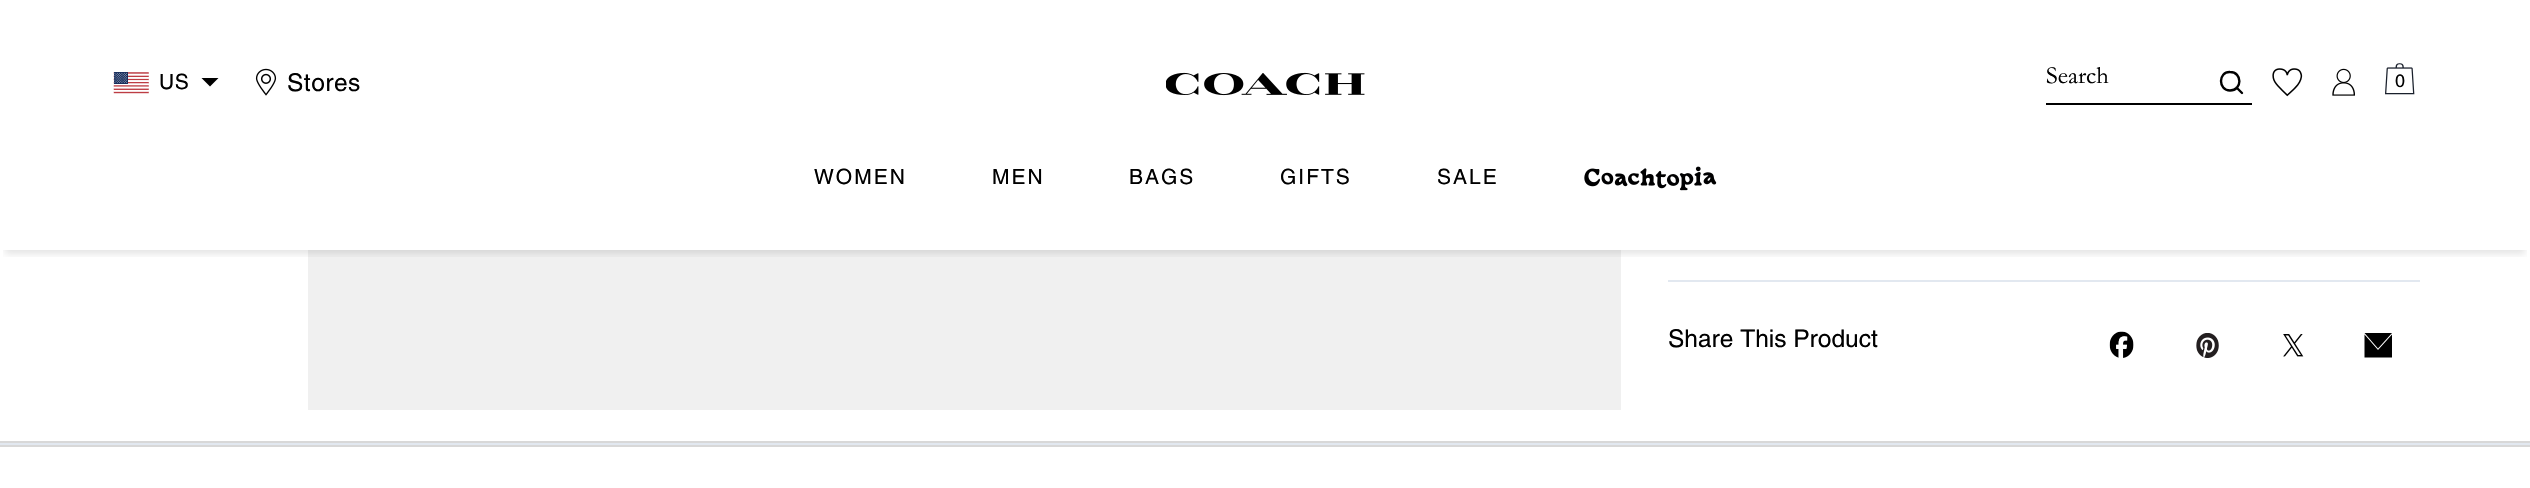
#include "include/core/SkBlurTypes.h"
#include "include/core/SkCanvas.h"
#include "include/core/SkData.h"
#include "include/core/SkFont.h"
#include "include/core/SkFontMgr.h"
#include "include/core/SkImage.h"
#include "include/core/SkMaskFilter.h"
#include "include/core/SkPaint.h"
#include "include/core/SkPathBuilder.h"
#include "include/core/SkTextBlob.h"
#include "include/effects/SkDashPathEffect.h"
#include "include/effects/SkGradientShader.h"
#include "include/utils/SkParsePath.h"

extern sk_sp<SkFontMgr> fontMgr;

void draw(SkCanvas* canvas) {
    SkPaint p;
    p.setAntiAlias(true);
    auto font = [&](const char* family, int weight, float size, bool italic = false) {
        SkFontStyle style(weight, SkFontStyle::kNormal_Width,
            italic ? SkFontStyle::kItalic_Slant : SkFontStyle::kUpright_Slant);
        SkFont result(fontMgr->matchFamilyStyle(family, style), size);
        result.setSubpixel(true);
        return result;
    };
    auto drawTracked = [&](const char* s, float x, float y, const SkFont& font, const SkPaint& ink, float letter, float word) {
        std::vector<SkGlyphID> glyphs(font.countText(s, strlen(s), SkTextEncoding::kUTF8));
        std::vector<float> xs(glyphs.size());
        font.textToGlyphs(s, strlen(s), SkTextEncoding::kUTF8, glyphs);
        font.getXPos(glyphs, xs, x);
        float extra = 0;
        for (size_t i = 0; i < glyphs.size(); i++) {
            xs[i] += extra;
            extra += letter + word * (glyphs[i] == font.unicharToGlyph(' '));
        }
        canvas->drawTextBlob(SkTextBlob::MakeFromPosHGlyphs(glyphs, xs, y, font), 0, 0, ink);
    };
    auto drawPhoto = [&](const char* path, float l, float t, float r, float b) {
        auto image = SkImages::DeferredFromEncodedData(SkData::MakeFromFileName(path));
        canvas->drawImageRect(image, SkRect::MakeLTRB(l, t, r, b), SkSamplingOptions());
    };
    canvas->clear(0xFFFFFFFF);
    drawPhoto("media/1.png", 113, 72, 149, 94);
    auto font1 = font("Helvetica", 400, 21);
    p.setColor(0xFF000000);
    drawTracked("US", 159, 89, font1, p, 0.5f, 0);
    canvas->drawPath(SkPathBuilder(SkPathFillType::kEvenOdd).moveTo(210, 86.5f).lineTo(218.5f, 78).lineTo(201.5f, 78).close().detach(), p);
    drawPhoto("media/2.png", 255, 68, 277, 96);
    auto font2 = font("Helvetica", 400, 24.5f);
    drawTracked("Stores", 287, 91, font2, p, 0.5f, 0);
    drawPhoto("media/3.png", 1166, 72, 1365, 96);
    canvas->drawRect(SkRect::MakeLTRB(2046, 103, 2252, 105), p);
    auto font3 = font("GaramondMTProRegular", 400, 24.5f);
    canvas->drawString("Search", 2046, 83, font3, p);
    p.setStyle(SkPaint::kStroke_Style);
    p.setStrokeWidth(2.4f);
    p.setStrokeCap(SkPaint::kRound_Cap);
    p.setStrokeJoin(SkPaint::kRound_Join);
    canvas->drawPath(SkPathBuilder().moveTo(2230, 90.5f).cubicTo(2242.5f, 90.5f, 2242.5f, 72, 2230, 72).cubicTo(2218, 71.5f, 2218, 90.5f, 2230, 90.5f).close().moveTo(2242, 93).lineTo(2236.5f, 87.5f).detach(), p);
    drawPhoto("media/4.png", 2272, 68, 2303, 97);
    drawPhoto("media/5.png", 2332, 68, 2355, 96);
    drawPhoto("media/6.png", 2385, 63, 2415, 95);
    auto font4 = font("Helvetica", 400, 18);
    p.setStyle(SkPaint::kFill_Style);
    drawTracked("0", 2395, 87, font4, p, 2, 0);
    p.setColor(0xFFF0F0F0);
    canvas->drawRect(SkRect::MakeLTRB(308, 250, 1621, 410), p);
    canvas->save();
    canvas->clipRect(SkRect::MakeLTRB(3, 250, 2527, 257));
    p.setColor(0x1A000000);
    p.setMaskFilter(SkMaskFilter::MakeBlur(kNormal_SkBlurStyle, 3.5f));
    canvas->drawRect(SkRect::MakeLTRB(5, 180, 2525, 254), p);
    p.setMaskFilter(nullptr);
    canvas->restore();
    p.setColor(0xFF000000);
    {
        const struct { const char* s; float x, y; } items[] = {
            {"WOMEN", 814, 184},
            {"MEN", 992, 184},
            {"BAGS", 1129, 184},
            {"GIFTS", 1280, 184},
            {"SALE", 1437, 184},
        };
        for (auto [s, x, y] : items) {
            drawTracked(s, x, y, font1, p, 2, 0);
        }
    }
    drawPhoto("media/7.png", 1584, 166, 1717, 191);
    p.setColor(0xFFE2E8F0);
    canvas->drawRect(SkRect::MakeLTRB(1668, 280, 2420, 282), p);
    p.setColor(0xFF000000);
    canvas->drawString("Share This Product", 1668, 347, font2, p);
    drawPhoto("media/8.png", 2109, 331, 2134, 358);
    drawPhoto("media/9.png", 2196, 333, 2219, 358);
    drawPhoto("media/10.png", 2283, 334, 2304, 357);
    canvas->drawPath(SkPathBuilder(SkPathFillType::kEvenOdd).moveTo(2364.5f, 333).lineTo(2378, 348.5f).lineTo(2392, 333).close().detach(), p);
    canvas->drawPath(SkPathBuilder(SkPathFillType::kEvenOdd).moveTo(2364.5f, 334.5f).lineTo(2378, 350).lineTo(2392, 334.5f).lineTo(2392, 357.5f).lineTo(2364.5f, 357.5f).close().detach(), p);
    {
        const struct { float l, t, r, b; SkColor color; } items[] = {
            {0, 441, 2530, 443, 0xFFD8D8D8},
            {0, 443, 2530, 445, 0xFFE2E8F0},
            {0, 445, 2530, 447, 0xFFD8D8D8},
        };
        for (auto [l, t, r, b, color] : items) {
            p.setColor(color);
            canvas->drawRect(SkRect::MakeLTRB(l, t, r, b), p);
        }
    }
}
